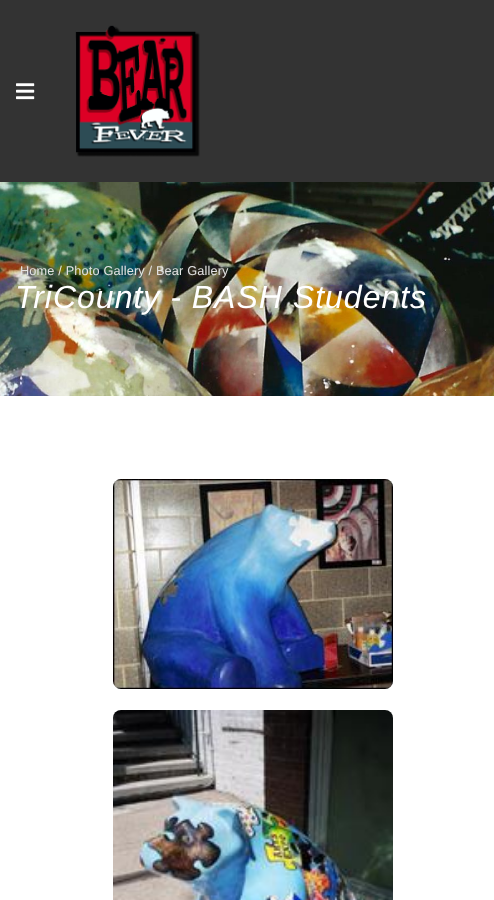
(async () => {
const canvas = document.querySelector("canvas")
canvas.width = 494
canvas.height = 900
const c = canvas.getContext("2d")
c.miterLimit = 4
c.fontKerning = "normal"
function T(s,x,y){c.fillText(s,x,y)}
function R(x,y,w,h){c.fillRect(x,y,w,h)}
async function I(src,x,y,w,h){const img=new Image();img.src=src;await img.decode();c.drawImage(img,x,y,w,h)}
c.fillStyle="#fff"
R(0,0,494,900)
c.fillStyle="#333"
R(0,0,494,182)
await I("1.png",16,83,19,17)
await I("2.png",75,25,125,132)
await I("3.png",0,182,494,214)
c.letterSpacing="0.15px"
c.font="12.75px Liberation Sans"
c.fillStyle="#e3e3e3"
T("Home / Photo Gallery / Bear Gallery",20,275)
c.letterSpacing="1px"
c.font="italic 32px Liberation Sans"
c.fillStyle="#fff"
T("TriCounty - BASH Students",15,308)
await I("4.png",113,479,280,210)
await I("5.png",113,710,280,190)
})()
